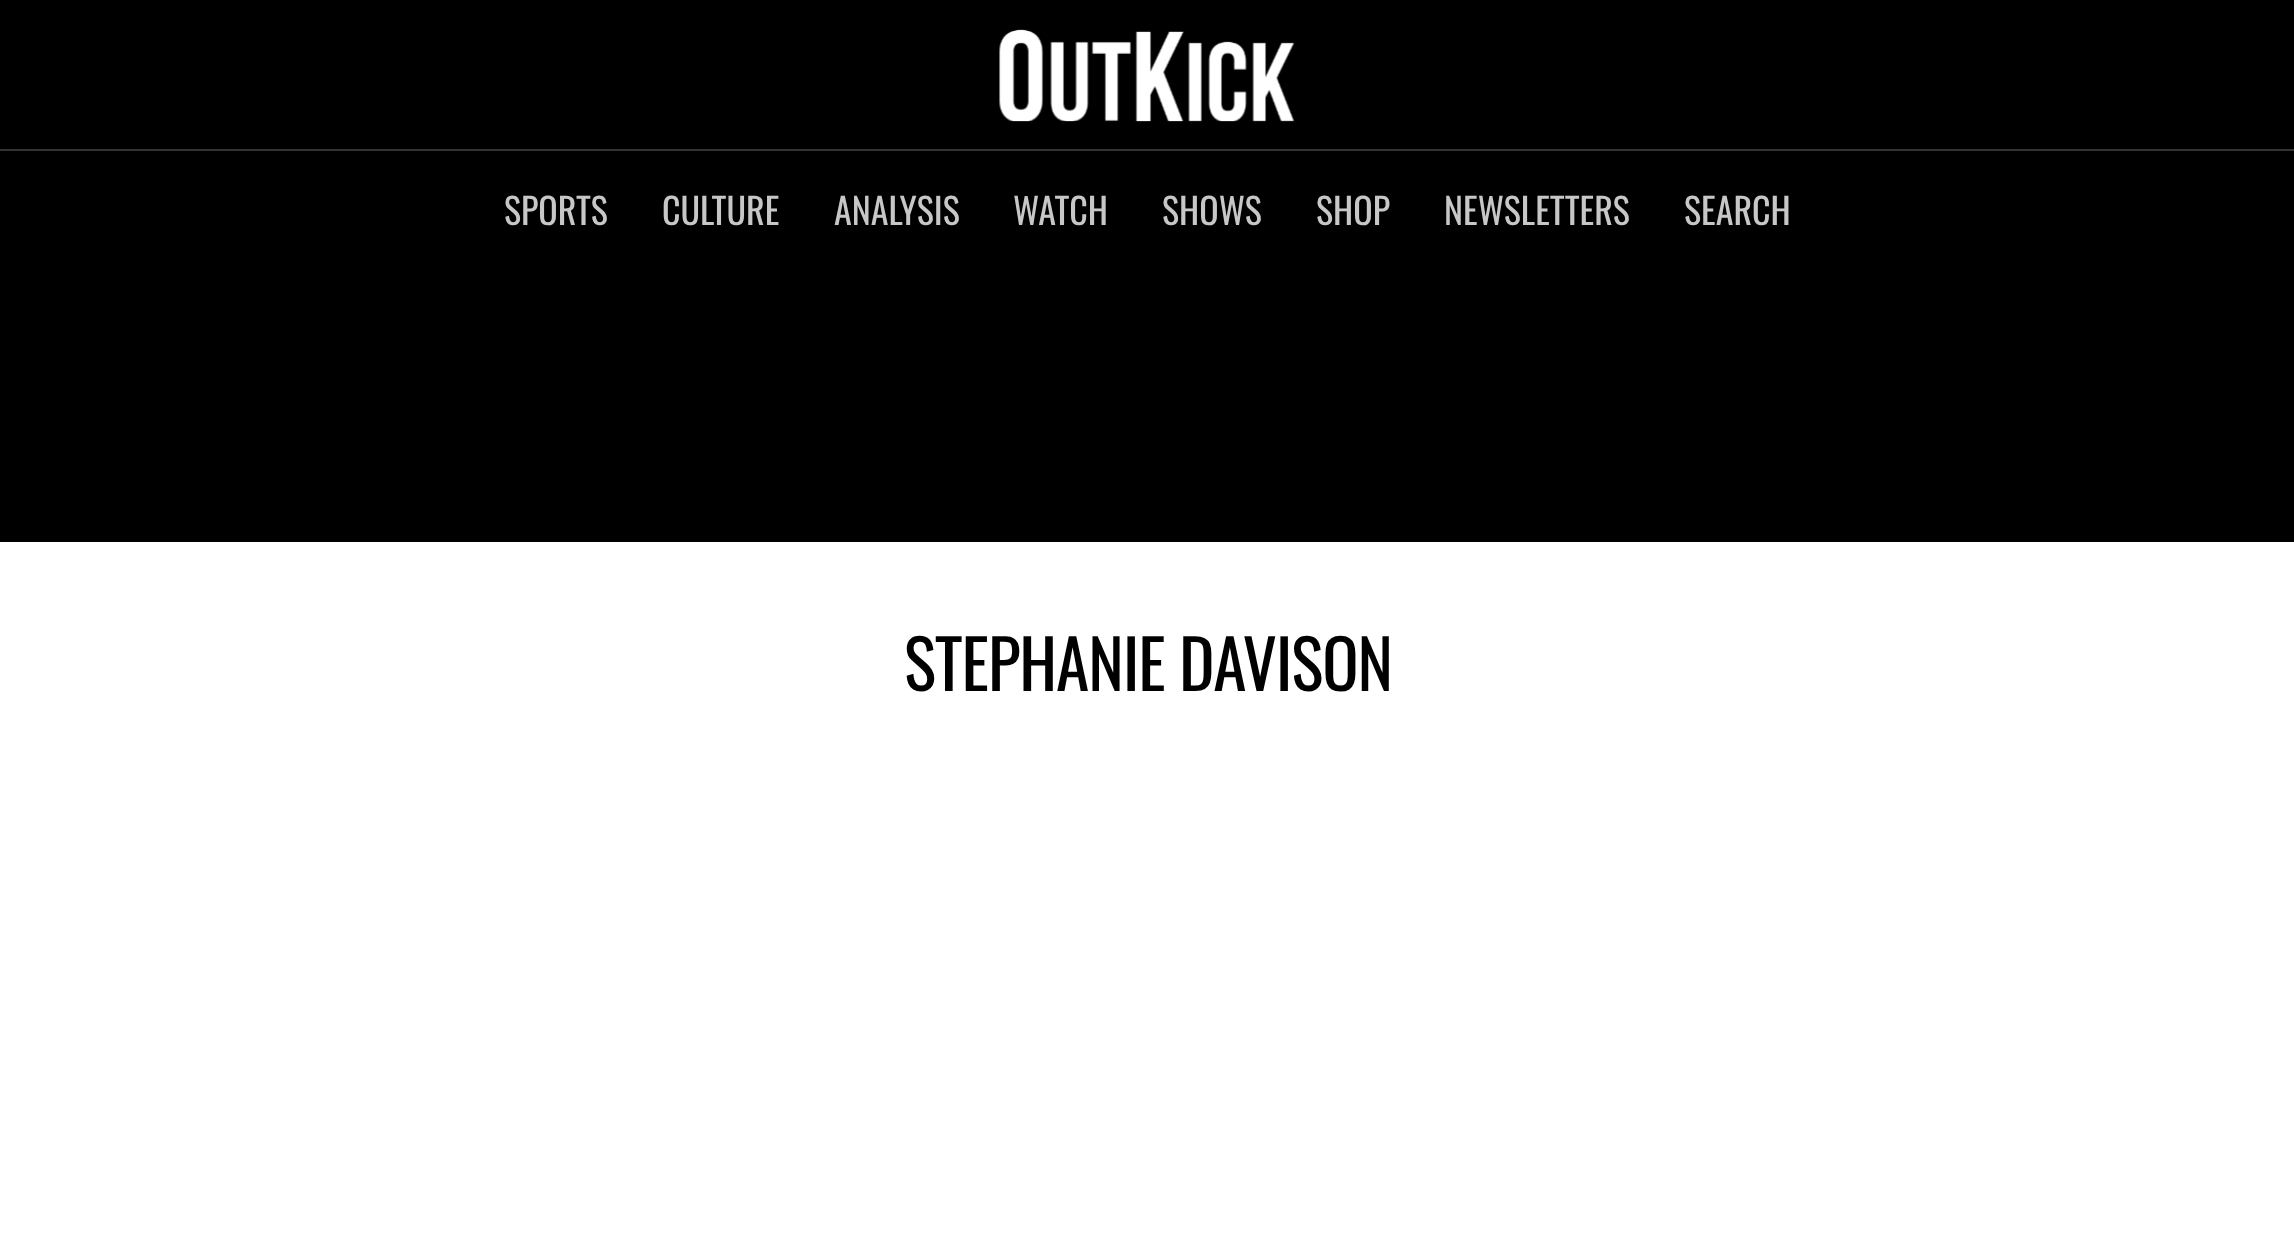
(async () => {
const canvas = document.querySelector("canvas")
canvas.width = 2294
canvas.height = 1236
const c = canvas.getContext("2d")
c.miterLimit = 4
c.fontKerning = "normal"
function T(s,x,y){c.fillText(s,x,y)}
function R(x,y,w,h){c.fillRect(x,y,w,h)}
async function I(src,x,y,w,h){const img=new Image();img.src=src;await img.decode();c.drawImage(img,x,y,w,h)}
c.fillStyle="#fff"
R(0,0,2294,1236)
c.fillStyle="#000"
R(0,0,2294,542)
await I("1.png",999,29,296,93)
c.fillStyle="#333"
R(0,149,2294,2)
c.font="36px Oswald"
c.fillStyle="#c7c7c7"
T("SPORTS",504,225)
T("CULTURE",662,225)
T("ANALYSIS",834,225)
T("WATCH",1013,225)
T("SHOWS",1162,225)
T("SHOP",1316,225)
T("NEWSLETTERS",1444,225)
T("SEARCH",1684,225)
c.letterSpacing="-1.1px"
c.font="67.5px Oswald"
c.fillStyle="#000"
T("STEPHANIE DAVISON",904,691)
})()
